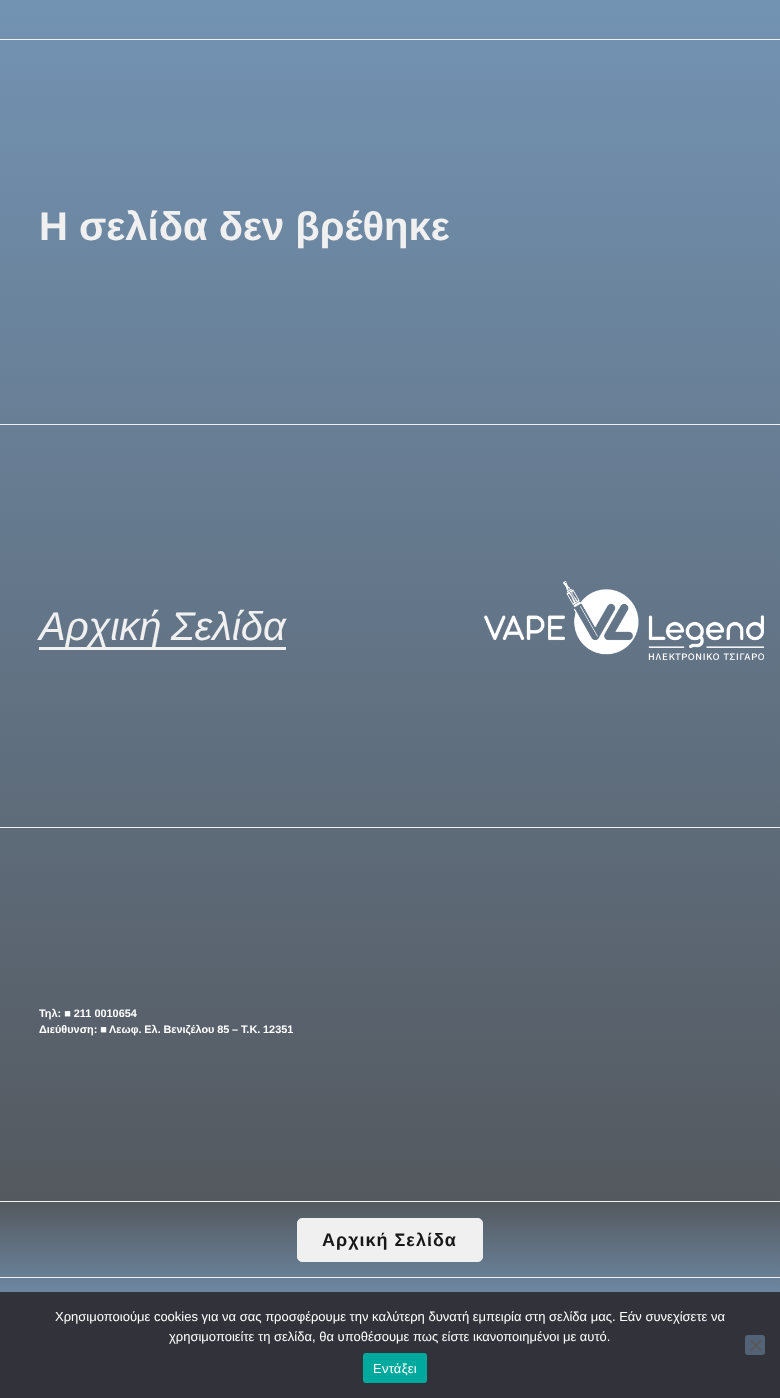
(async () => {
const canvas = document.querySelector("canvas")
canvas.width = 780
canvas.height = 1398
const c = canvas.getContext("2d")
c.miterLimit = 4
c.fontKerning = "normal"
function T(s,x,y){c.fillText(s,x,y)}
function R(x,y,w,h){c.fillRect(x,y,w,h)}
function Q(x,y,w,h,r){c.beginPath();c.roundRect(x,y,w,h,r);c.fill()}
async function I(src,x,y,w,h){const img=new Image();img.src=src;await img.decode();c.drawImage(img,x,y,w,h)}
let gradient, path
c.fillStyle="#fff"
R(0,0,780,1398)
gradient = c.createLinearGradient(390,0,390,1202)
gradient.addColorStop(0,"#7393b3")
gradient.addColorStop(1,"#54595f")
c.fillStyle = gradient
R(0,0,780,1201)
c.fillStyle="#f0f0f0"
R(0,39,780,1)
R(0,1201,780,1)
c.font="bold 40px Liberation Sans"
T("Η σελίδα δεν βρέθηκε",39,240)
R(0,424,780,1)
R(39,647,247,3)
c.wordSpacing="-2px"
c.font="italic 40px Liberation Sans"
T("Αρχική Σελίδα",39,640)
R(0,827,780,1)
c.wordSpacing="0px"
c.font="bold 10.9px Liberation Sans"
c.fillStyle="#fff"
T("Τηλ: ■ 211 0010654",39,1017)
c.wordSpacing="-0.25px"
T("Διεύθυνση: ■ Λεωφ. Ελ. Βενιζέλου 85 – Τ.Κ. 12351",39,1033)
await I("1.png",484,581,280,79)
gradient = c.createLinearGradient(390,1202,390,1317)
gradient.addColorStop(0,"#54595f")
gradient.addColorStop(1,"#7393b3")
c.fillStyle = gradient
R(0,1202,780,90)
c.fillStyle="#f0f0f0"
R(0,1277,780,1)
c.beginPath()
c.roundRect(297.5,1218.5,185,43,4.5)
c.fill()
c.strokeStyle="#f0f0f0"
c.stroke()
c.letterSpacing="1px"
c.wordSpacing="0px"
c.font="bold 18px Liberation Sans"
c.fillStyle="#181818"
T("Αρχική Σελίδα",322,1246)
c.fillStyle="#32323a"
R(0,1292,780,106)
c.letterSpacing="0px"
c.font="13px Liberation Sans"
c.fillStyle="#fff"
T("Χρησιμοποιούμε cookies για να σας προσφέρουμε την καλύτερη δυνατή εμπειρία στη σελίδα μας. Εάν συνεχίσετε να",55,1321)
T("χρησιμοποιείτε τη σελίδα, θα υποθέσουμε πως είστε ικανοποιημένοι με αυτό.",169,1341)
c.fillStyle="#536377"
Q(745,1335,20,20,3)
c.fillStyle="#59595d"
path = new Path2D("M760.5 1339.5l1.5 1.5l-10.5 10.5l-1.5-1.5z")
c.fill(path)
path = new Path2D("M750 1341l1.5-1.5l10.5 10.5l-1.5 1.5z")
c.fill(path)
c.fillStyle="#00a99d"
Q(363,1353,64,30,3)
c.letterSpacing="0.25px"
c.fillStyle="#fff"
T("Εντάξει",373,1373)
})()
